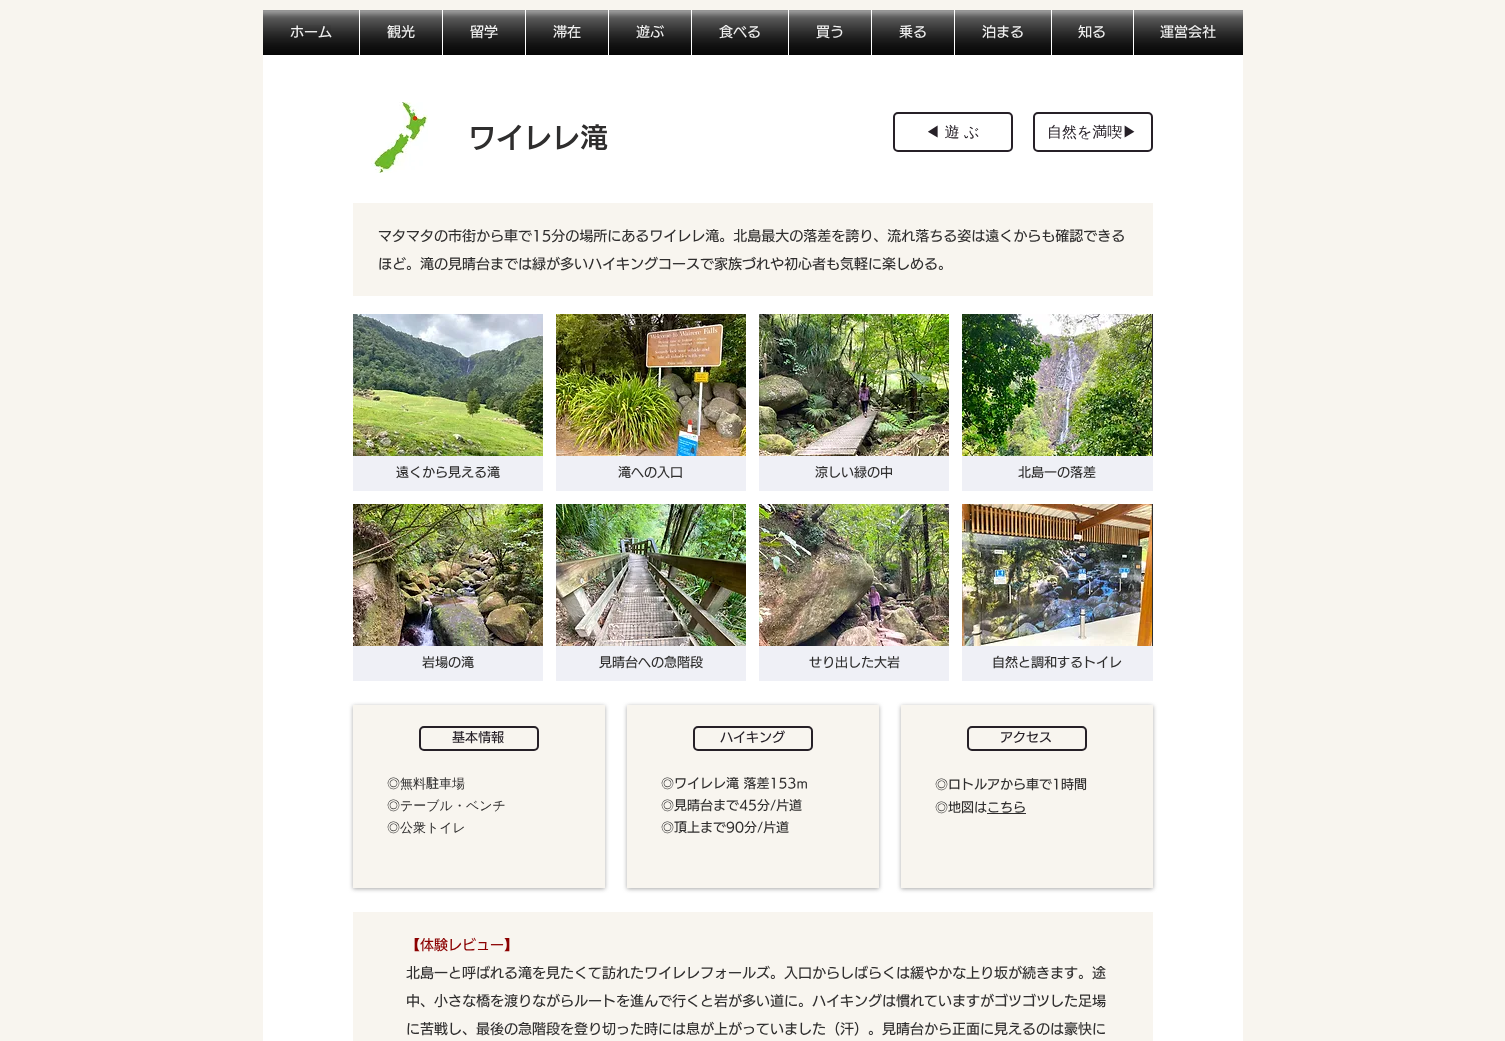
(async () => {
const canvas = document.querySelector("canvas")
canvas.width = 1505
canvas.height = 1041
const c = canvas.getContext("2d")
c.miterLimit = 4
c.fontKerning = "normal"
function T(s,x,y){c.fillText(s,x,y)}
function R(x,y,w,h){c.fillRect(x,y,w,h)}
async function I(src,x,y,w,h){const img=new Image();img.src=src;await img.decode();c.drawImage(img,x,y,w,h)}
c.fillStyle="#f8f5ef"
R(0,0,1505,1041)
c.fillStyle="#000"
R(263,10,96,45)
c.font="500 14px 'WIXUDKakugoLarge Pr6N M'"
c.fillStyle="#fff"
T("ホーム",290,37)
await I("1.png",263,10,96,45)
await I("2.png",290,25,41,13)
c.fillStyle="#000"
R(360,10,82,45)
c.fillStyle="#fff"
R(359,10,1,45)
T("観光",387,37)
await I("3.png",360,10,82,45)
await I("4.png",387,25,27,14)
c.fillStyle="#000"
R(443,10,82,45)
c.fillStyle="#fff"
R(442,10,1,45)
T("留学",470,37)
await I("5.png",443,10,82,45)
await I("6.png",470,25,27,14)
c.fillStyle="#000"
R(526,10,82,45)
c.fillStyle="#fff"
R(525,10,1,45)
T("滞在",553,37)
await I("7.png",526,10,82,45)
await I("8.png",553,25,27,14)
c.fillStyle="#000"
R(609,10,82,45)
c.fillStyle="#fff"
R(608,10,1,45)
T("遊ぶ",636,37)
await I("9.png",609,10,82,45)
await I("10.png",636,25,28,13)
c.fillStyle="#000"
R(692,10,96,45)
c.fillStyle="#fff"
R(691,10,1,45)
T("食べる",719,37)
await I("11.png",692,10,96,45)
await I("12.png",719,25,40,14)
c.fillStyle="#000"
R(789,10,82,45)
c.fillStyle="#fff"
R(788,10,1,45)
T("買う",816,37)
await I("13.png",789,10,82,45)
await I("14.png",816,25,26,14)
c.fillStyle="#000"
R(872,10,82,45)
c.fillStyle="#fff"
R(871,10,1,45)
T("乗る",899,37)
await I("15.png",872,10,82,45)
await I("16.png",899,25,26,14)
c.fillStyle="#000"
R(955,10,96,45)
c.fillStyle="#fff"
R(954,10,1,45)
T("泊まる",982,37)
await I("17.png",955,10,96,45)
await I("18.png",982,25,40,14)
c.fillStyle="#000"
R(1052,10,81,45)
c.fillStyle="#fff"
R(1051,10,1,45)
T("知る",1078,37)
await I("19.png",1052,10,81,45)
await I("20.png",1078,25,27,13)
c.fillStyle="#000"
R(1134,10,109,45)
c.fillStyle="#fff"
R(1133,10,1,45)
T("運営会社",1160,37)
await I("21.png",1134,10,109,45)
await I("22.png",1160,25,56,14)
R(263,55,980,986)
await I("23.png",371,102,57,71)
c.font="600 28px 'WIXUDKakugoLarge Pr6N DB'"
c.fillStyle="#2f2e2e"
T("ワイレレ滝",468,148)
c.beginPath()
c.roundRect(894,113,118,38,4)
c.strokeStyle="#262027"
c.lineWidth=2
c.stroke()
c.font="500 15px WenQuanYi Zen Hei"
c.fillStyle="#262027"
T("◀︎ 遊 ぶ",925,137)
c.beginPath()
c.roundRect(1034,113,118,38,4)
c.stroke()
T("自然を満喫▶︎",1047,137)
c.fillStyle="#f8f5ef"
R(353,203,800,93)
c.font="500 14px 'WIXUDKakugoLarge Pr6N M'"
c.fillStyle="#2f2e2e"
T("マタマタの市街から車で15分の場所にあるワイレレ滝。北島最大の落差を誇り、流れ落ちる姿は遠くからも確認できる",378,241)
T("ほど。滝の見晴台までは緑が多いハイキングコースで家族づれや初心者も気軽に楽しめる。",378,269)
await I("24.png",353,314,190,142)
c.fillStyle="#eff0f6"
R(353,456,190,35)
c.font="500 13px 'WIXUDKakugoLarge Pr6N M'"
c.fillStyle="#2f2e2e"
T("遠くから見える滝",396,477)
await I("25.png",556,314,190,142)
c.fillStyle="#eff0f6"
R(556,456,190,35)
c.fillStyle="#2f2e2e"
T("滝への入口",618,477)
await I("26.png",759,314,190,142)
c.fillStyle="#eff0f6"
R(759,456,190,35)
c.fillStyle="#2f2e2e"
T("涼しい緑の中",815,477)
R(1152,314,1,142)
await I("27.png",962,314,190,142)
c.fillStyle="#eff0f6"
R(962,456,191,35)
c.save()
c.beginPath()
c.rect(972,466,171,14)
c.clip()
c.fillStyle="#2f2e2e"
T("北島一の落差",1018,477)
c.restore()
await I("28.png",353,504,190,142)
R(353,646,190,35)
c.fillStyle="#2f2e2e"
T("岩場の滝",422,667)
await I("29.png",556,504,190,142)
c.fillStyle="#eff0f6"
R(556,646,190,35)
c.fillStyle="#2f2e2e"
T("見晴台への急階段",599,667)
await I("30.png",759,504,190,142)
c.fillStyle="#eff0f6"
R(759,646,190,35)
c.fillStyle="#2f2e2e"
T("せり出した大岩",809,667)
R(1152,504,1,142)
await I("31.png",962,504,190,142)
c.fillStyle="#eff0f6"
R(962,646,191,35)
c.fillStyle="#2f2e2e"
T("自然と調和するトイレ",992,667)
c.fillStyle="#a9a9a9"
c.filter="blur(2px)"
c.beginPath()
c.rect(353,706,252,183)
c.fill()
c.filter="none"
c.fillStyle="#f8f5ef"
R(353,705,252,183)
c.beginPath()
c.roundRect(420,727,118,23,4)
c.stroke()
c.fillStyle="#262027"
T("基本情報",452,742)
c.font="500 13px WenQuanYi Zen Hei"
c.fillStyle="#2f2e2e"
T("◎無料",387,788)
c.font="500 13px 'WIXUDKakugoLarge Pr6N M'"
T("駐",426,788)
c.font="500 13px WenQuanYi Zen Hei"
T("車場",439,788)
T("◎テーブル・ベンチ",387,810)
T("◎公衆トイレ",387,832)
c.fillStyle="#a9a9a9"
c.filter="blur(2px)"
c.beginPath()
c.rect(627,706,252,183)
c.fill()
c.filter="none"
c.fillStyle="#f8f5ef"
R(627,705,252,183)
c.beginPath()
c.roundRect(694,727,118,23,4)
c.stroke()
c.font="500 13px 'WIXUDKakugoLarge Pr6N M'"
c.fillStyle="#262027"
T("ハイキング",720,742)
c.font="500 13px WenQuanYi Zen Hei"
c.fillStyle="#2f2e2e"
T("◎",661,788)
c.font="500 13px 'WIXUDKakugoLarge Pr6N M'"
T("ワイレレ滝 落差153m",674,788)
c.font="500 13px WenQuanYi Zen Hei"
T("◎",661,810)
c.font="500 13px 'WIXUDKakugoLarge Pr6N M'"
T("見晴台まで45分/片道",674,810)
c.font="500 13px WenQuanYi Zen Hei"
T("◎",661,832)
c.font="500 13px 'WIXUDKakugoLarge Pr6N M'"
T("頂上まで90分/片道",674,832)
c.fillStyle="#a9a9a9"
c.filter="blur(2px)"
c.beginPath()
c.rect(901,706,252,183)
c.fill()
c.filter="none"
c.fillStyle="#f8f5ef"
R(901,705,252,183)
c.beginPath()
c.roundRect(968,727,118,23,4)
c.stroke()
c.fillStyle="#262027"
T("アクセス",1000,742)
c.font="500 13px WenQuanYi Zen Hei"
c.fillStyle="#2f2e2e"
T("◎",935,789)
c.font="500 13px 'WIXUDKakugoLarge Pr6N M'"
T("ロトルアから車で1時間",948,789)
c.font="500 13px WenQuanYi Zen Hei"
T("◎",935,812)
c.font="500 13px 'WIXUDKakugoLarge Pr6N M'"
T("地図はこちら",948,812)
R(987,813,39,1)
c.fillStyle="#f8f5ef"
R(353,912,800,129)
c.font="500 14px 'WIXUDKakugoLarge Pr6N M'"
c.fillStyle="#8b0000"
T("【体験レビュー】",406,950)
c.fillStyle="#2f2e2e"
T("北島一と呼ばれる滝を見たくて訪れたワイレレフォールズ。入口からしばらくは緩やかな上り坂が続きます。途",406,978)
T("中、小さな橋を渡りながらルートを進んで行くと岩が多い道に。ハイキングは慣れていますがゴツゴツした足場",406,1006)
T("に苦戦し、最後の急階段を登り切った時には息が上がっていました（汗）。見晴台から正面に見えるのは豪快に",406,1034)
})()
